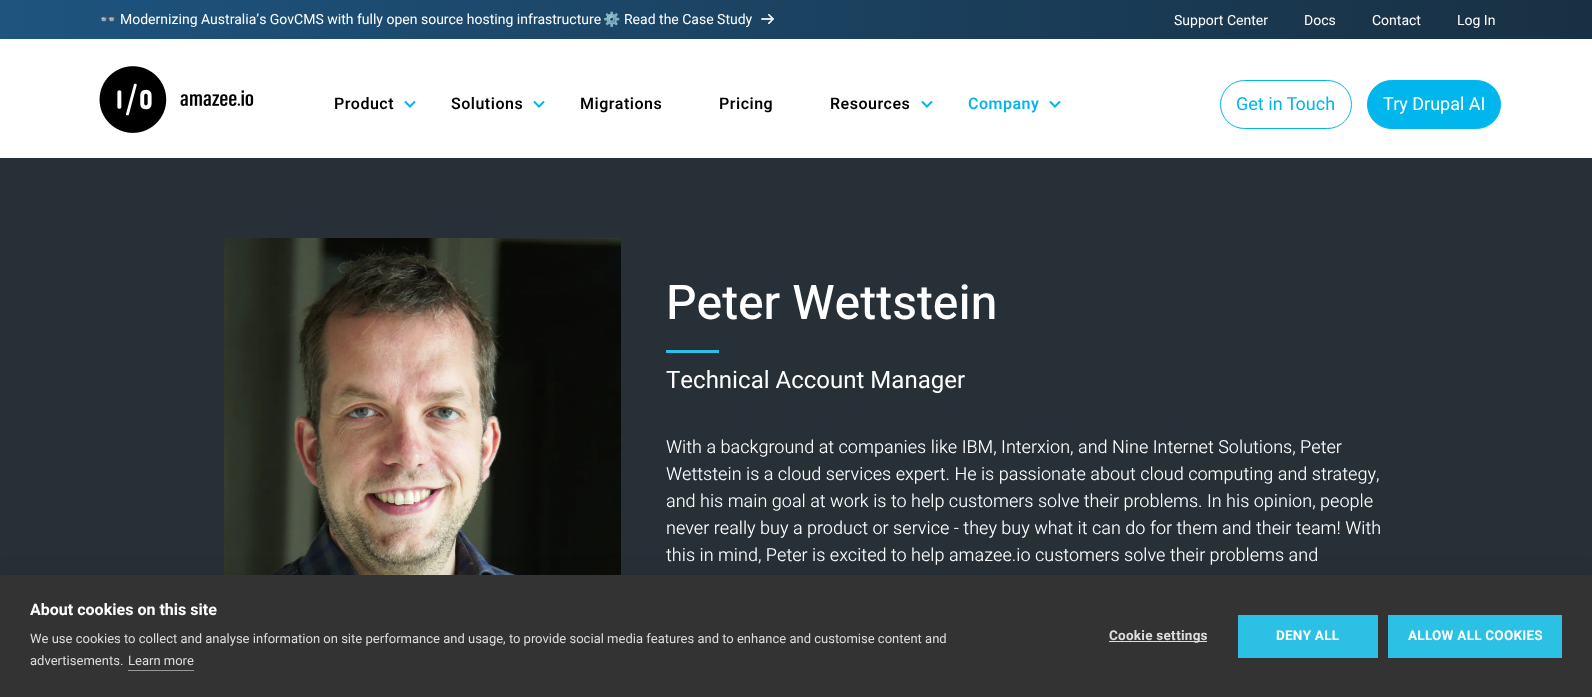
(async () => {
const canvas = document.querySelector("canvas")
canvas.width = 1592
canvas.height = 697
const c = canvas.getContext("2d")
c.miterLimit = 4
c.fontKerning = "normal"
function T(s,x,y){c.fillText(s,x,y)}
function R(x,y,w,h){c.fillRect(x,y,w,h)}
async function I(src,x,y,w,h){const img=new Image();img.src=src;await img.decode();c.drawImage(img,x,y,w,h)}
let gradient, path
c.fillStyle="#fff"
R(0,0,1592,697)
gradient = c.createLinearGradient(0,20,1592,19)
gradient.addColorStop(0,"#1e547f")
gradient.addColorStop(1,"#183043")
c.fillStyle = gradient
R(0,0,1592,39)
c.font="14px Noto Color Emoji"
c.fillStyle="#fff"
T("👓",99,24)
c.font="14px Heebo"
T("Modernizing Australia’s GovCMS with fully open source hosting infrastructure",120,24)
c.font="14px Noto Color Emoji"
T("⚙️",603,24)
c.font="14px Heebo"
T("Read the Case Study",624,24)
await I("1.png",761,14,13,10)
T("Support Center",1174,25)
T("Docs",1304,25)
T("Contact",1372,25)
T("Log In",1457,25)
await I("2.png",99,66,155,67)
path = new Path2D("M415 101.5l-5 5l-5-5")
c.strokeStyle="#00b6ed"
c.lineWidth=2
c.stroke(path)
c.letterSpacing="0.5px"
c.font="600 16px Heebo"
c.fillStyle="#000"
T("Product",334,109)
path = new Path2D("M544 101.5l-5 5l-5-5")
c.stroke(path)
T("Solutions",451,109)
T("Migrations",580,109)
T("Pricing",719,109)
path = new Path2D("M932 101.5l-5 5l-5-5")
c.stroke(path)
T("Resources",830,109)
path = new Path2D("M1060 101.5l-5 5l-5-5")
c.stroke(path)
c.fillStyle="#00b6ed"
T("Company",968,109)
c.beginPath()
c.roundRect(1220.5,80.5,131,48,24)
c.lineWidth=1
c.stroke()
c.letterSpacing="0px"
c.font="18px Heebo"
T("Get in Touch",1236,110)
c.beginPath()
c.roundRect(1367.5,80.5,133,48,24)
c.fill()
c.stroke()
c.fillStyle="#fff"
T("Try Drupal AI",1383,110)
c.fillStyle="#273037"
R(0,158,1592,417)
await I("3.png",224,238,397,337)
c.font="500 48px Heebo"
c.fillStyle="#fff"
T("Peter Wettstein",666,319)
c.fillStyle="#2bc0e4"
R(666,350,53,3)
c.font="24px Heebo"
c.fillStyle="#fff"
T("Technical Account Manager",666,388)
c.font="300 18px Heebo"
T("With a background at companies like IBM, Interxion, and Nine Internet Solutions, Peter",666,453)
T("Wettstein is a cloud services expert. He is passionate about cloud computing and strategy,",666,480)
T("and his main goal at work is to help customers solve their problems. In his opinion, people",666,507)
T("never really buy a product or service - they buy what it can do for them and their team! With",666,534)
T("this in mind, Peter is excited to help amazee.io customers solve their problems and",666,561)
c.fillStyle="#0000001a"
c.filter="blur(10px)"
c.beginPath()
c.rect(0,575,1592,122)
c.fill()
c.filter="none"
c.fillStyle="#333"
R(0,575,1592,122)
c.font="bold 16px Heebo"
c.fillStyle="#fff"
T("About cookies on this site",30,615)
c.font="13px Heebo"
c.fillStyle="#ddd"
T("We use cookies to collect and analyse information on site performance and usage, to provide social media features and to enhance and customise content and",30,643)
T("advertisements.",30,665)
T("Learn more",128,665)
c.fillStyle="#999"
R(128,670,66,1)
c.fillStyle="#ddd"
R(1109,641,98,1)
c.letterSpacing="0.25px"
c.font="bold 13.5px Heebo"
T("Cookie settings",1109,640)
c.fillStyle="#2bc0e4"
R(1238,615,140,43)
c.fillStyle="#fff"
T("DENY ALL",1276,640)
c.fillStyle="#2bc0e4"
R(1388,615,174,43)
c.fillStyle="#fff"
T("ALLOW ALL COOKIES",1408,640)
})()
